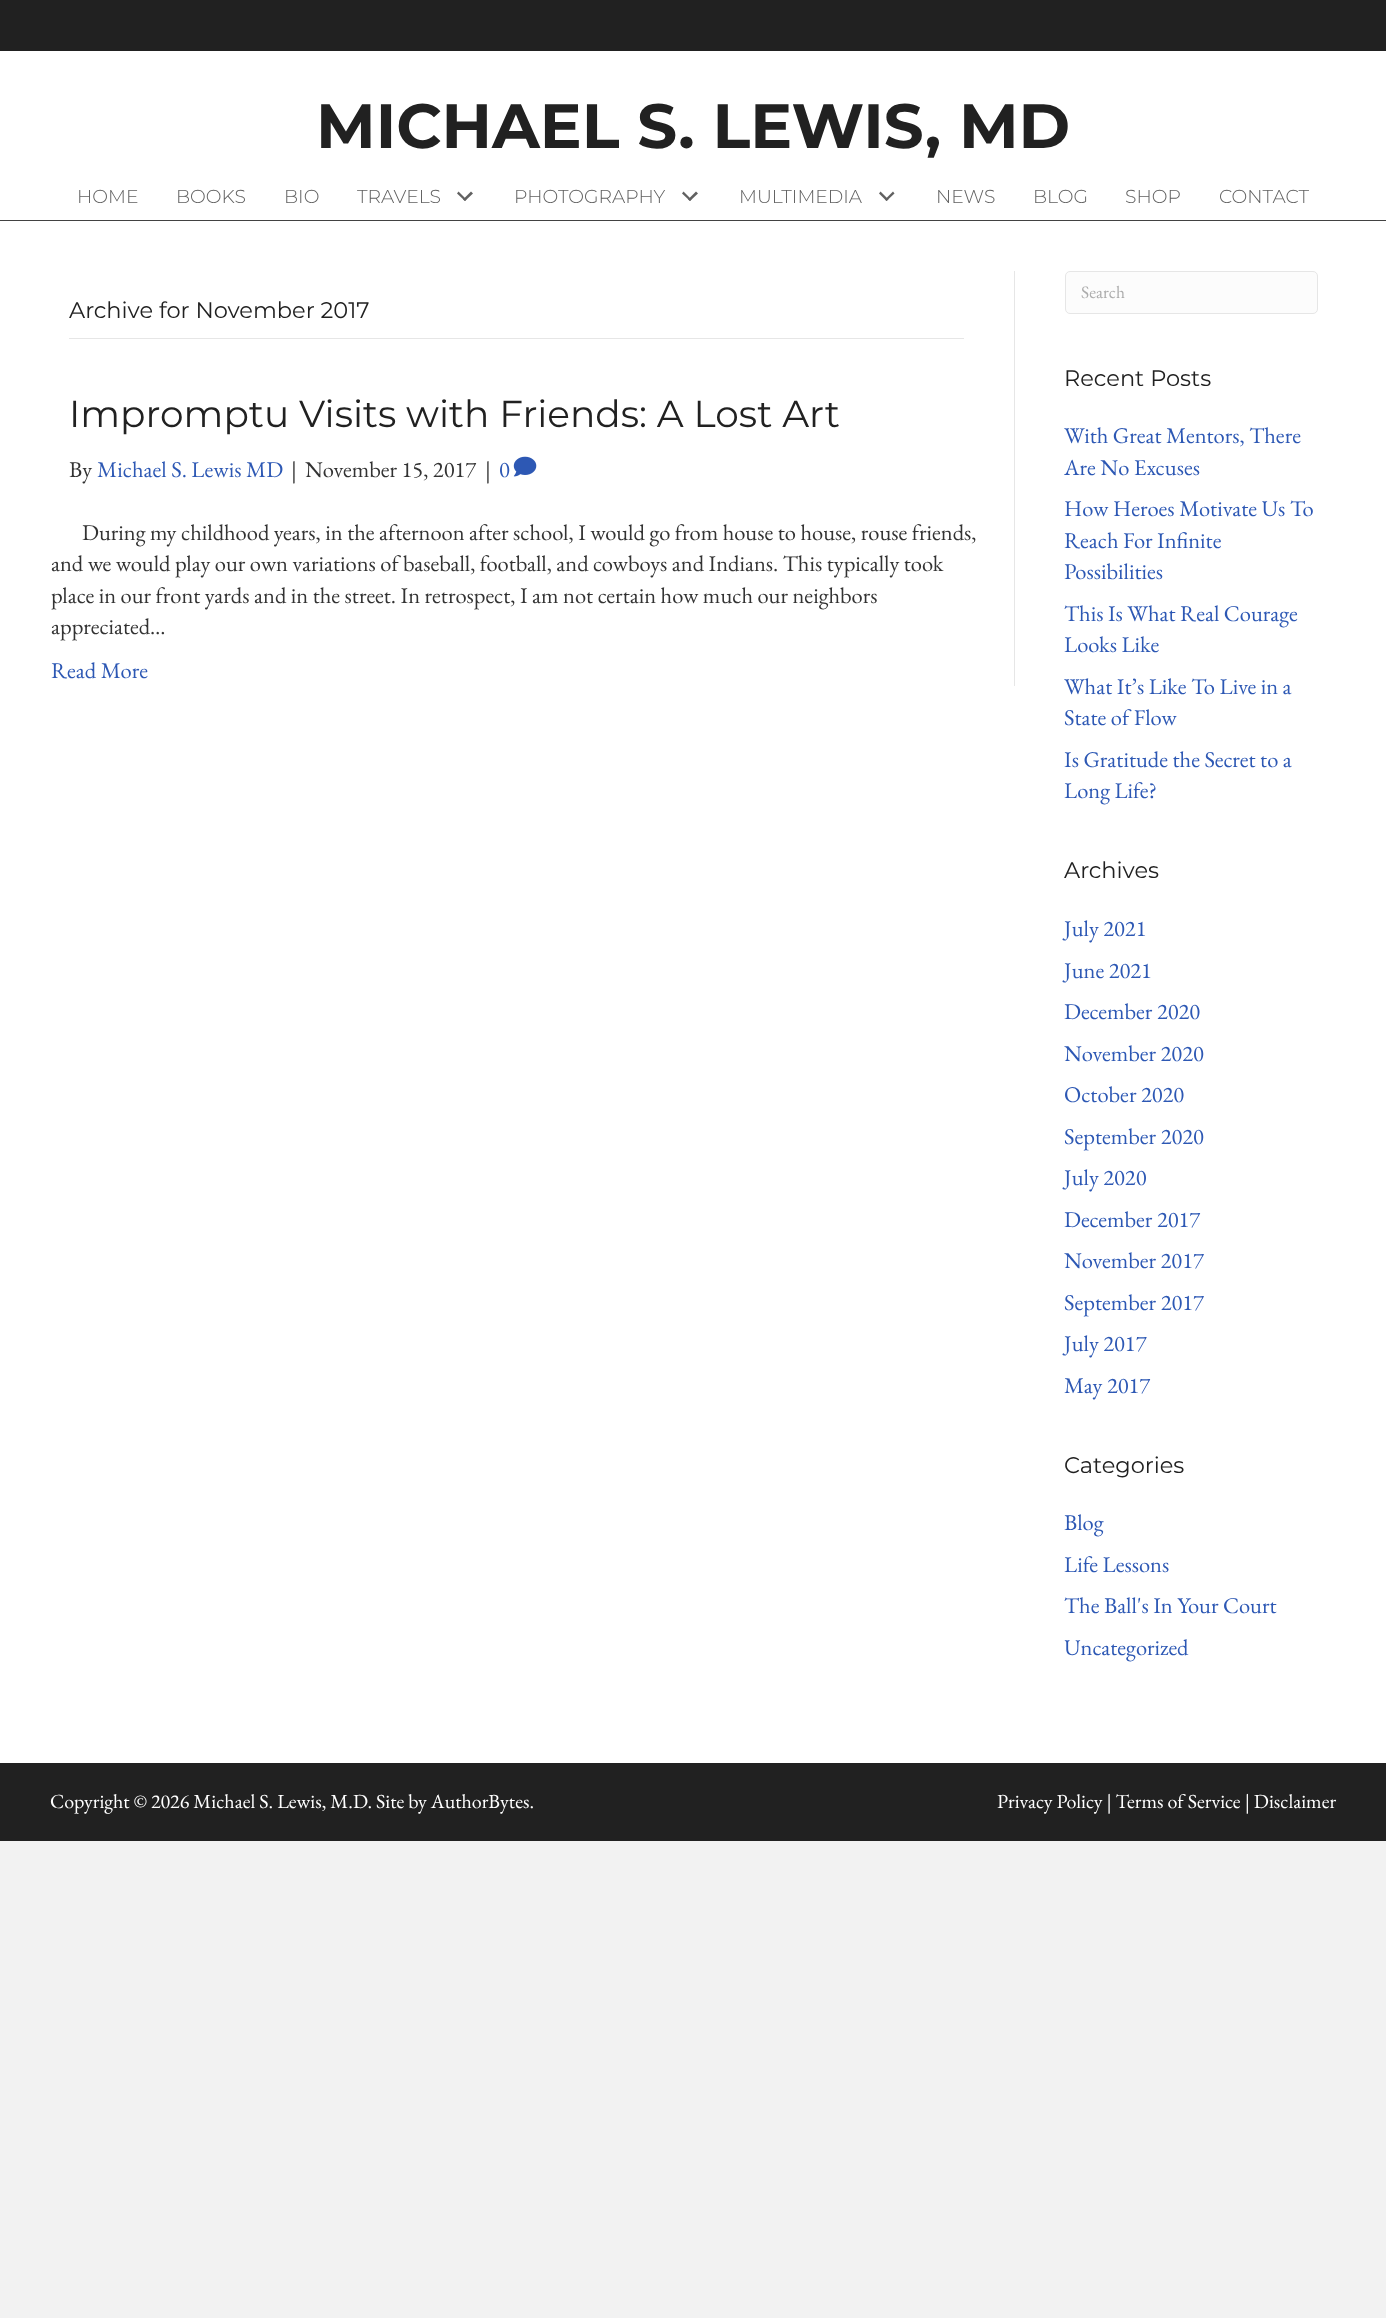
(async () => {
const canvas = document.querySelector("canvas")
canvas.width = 1386
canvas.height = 2318
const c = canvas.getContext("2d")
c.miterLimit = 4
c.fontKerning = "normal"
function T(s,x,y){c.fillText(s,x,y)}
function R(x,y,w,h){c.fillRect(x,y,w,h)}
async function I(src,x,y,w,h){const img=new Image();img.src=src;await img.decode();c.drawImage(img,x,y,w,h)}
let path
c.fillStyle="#f2f2f2"
R(0,0,1386,2318)
c.fillStyle="#212121"
R(0,0,1386,51)
c.fillStyle="#fff"
R(0,51,1386,169)
c.fillStyle="#424242"
R(0,220,1386,1)
c.font="bold 62.5px Montserrat"
c.fillStyle="#212121"
T("MICHAEL S. LEWIS, MD",316,148)
c.font="300 18.75px Montserrat"
c.fillStyle="#616161"
T("HOME",77,203)
T("BOOKS",176,203)
T("BIO",284,203)
T("TRAVELS",357,203)
path = new Path2D("M471 191.5l2 2l-8 7.5l-2-1.5z")
c.fill(path)
path = new Path2D("M458.5 191.5l8 8l-1.5 1.5l-8-7.5z")
c.fill(path)
T("PHOTOGRAPHY",514,203)
path = new Path2D("M696 191.5l2 2l-8 7.5l-2-1.5z")
c.fill(path)
path = new Path2D("M683.5 191.5l8 8l-1.5 1.5l-8-7.5z")
c.fill(path)
T("MULTIMEDIA",739,203)
path = new Path2D("M893 191.5l1.5 2l-8 7.5l-1.5-1.5z")
c.fill(path)
path = new Path2D("M880.5 191.5l8 8l-2 1.5l-7.5-7.5z")
c.fill(path)
T("NEWS",936,203)
T("BLOG",1033,203)
T("SHOP",1125,203)
T("CONTACT",1219,203)
c.fillStyle="#fff"
R(0,221,1386,1542)
c.fillStyle="#e6e6e6"
R(1014,271,1,415)
R(69,338,895,1)
c.font="22.5px Montserrat"
c.fillStyle="#212121"
T("Archive for November 2017",69,318)
c.font="37.5px Montserrat"
T("Impromptu Visits with Friends: A Lost Art",69,427)
c.font="22.5px EB Garamond"
c.fillStyle="#333"
T("By",69,477)
c.fillStyle="#2d58b4"
T("Michael S. Lewis MD",97,477)
c.fillStyle="#333"
T("|",291,477)
T("November 15, 2017",305,477)
T("|",485,477)
c.fillStyle="#2d58b4"
T("0",499,477)
await I("1.png",513,456,24,21)
c.fillStyle="#333"
T("During my childhood years, in the afternoon after school, I would go from house to house, rouse friends,",82,540)
T("and we would play our own variations of baseball, football, and cowboys and Indians. This typically took",51,571)
T("place in our front yards and in the street. In retrospect, I am not certain how much our neighbors",51,603)
T("appreciated…",51,634)
c.fillStyle="#2d58b4"
T("Read More",51,678)
c.fillStyle="#fcfcfc"
c.beginPath()
c.roundRect(1065.5,271.5,252,42,4.5)
c.fill()
c.strokeStyle="#e6e6e6"
c.stroke()
c.font="17.5px EB Garamond"
c.fillStyle="#acacac"
T("Search",1081,298)
c.font="22.5px Montserrat"
c.fillStyle="#212121"
T("Recent Posts",1064,386)
c.font="22.5px EB Garamond"
c.fillStyle="#2d58b4"
T("With Great Mentors, There",1064,443)
T("Are No Excuses",1064,475)
T("How Heroes Motivate Us To",1064,516)
T("Reach For Infinite",1064,548)
T("Possibilities",1064,579)
T("This Is What Real Courage",1064,621)
T("Looks Like",1064,652)
T("What It’s Like To Live in a",1064,694)
T("State of Flow",1064,725)
T("Is Gratitude the Secret to a",1064,767)
T("Long Life?",1064,798)
c.font="22.5px Montserrat"
c.fillStyle="#212121"
T("Archives",1064,878)
c.font="22.5px EB Garamond"
c.fillStyle="#2d58b4"
T("July 2021",1064,936)
T("June 2021",1064,978)
T("December 2020",1064,1019)
T("November 2020",1064,1061)
T("October 2020",1064,1102)
T("September 2020",1064,1144)
T("July 2020",1064,1185)
T("December 2017",1064,1227)
T("November 2017",1064,1268)
T("September 2017",1064,1310)
T("July 2017",1064,1351)
T("May 2017",1064,1393)
c.font="22.5px Montserrat"
c.fillStyle="#212121"
T("Categories",1064,1473)
c.font="22.5px EB Garamond"
c.fillStyle="#2d58b4"
T("Blog",1064,1530)
T("Life Lessons",1064,1572)
T("The Ball's In Your Court",1064,1613)
T("Uncategorized",1064,1655)
c.fillStyle="#212121"
R(0,1763,1386,78)
c.font="20px EB Garamond"
c.fillStyle="#fff"
T("Copyright © 2026 Michael S. Lewis, M.D. Site by AuthorBytes.",50,1808)
T("Privacy Policy | Terms of Service | Disclaimer",997,1808)
})()
